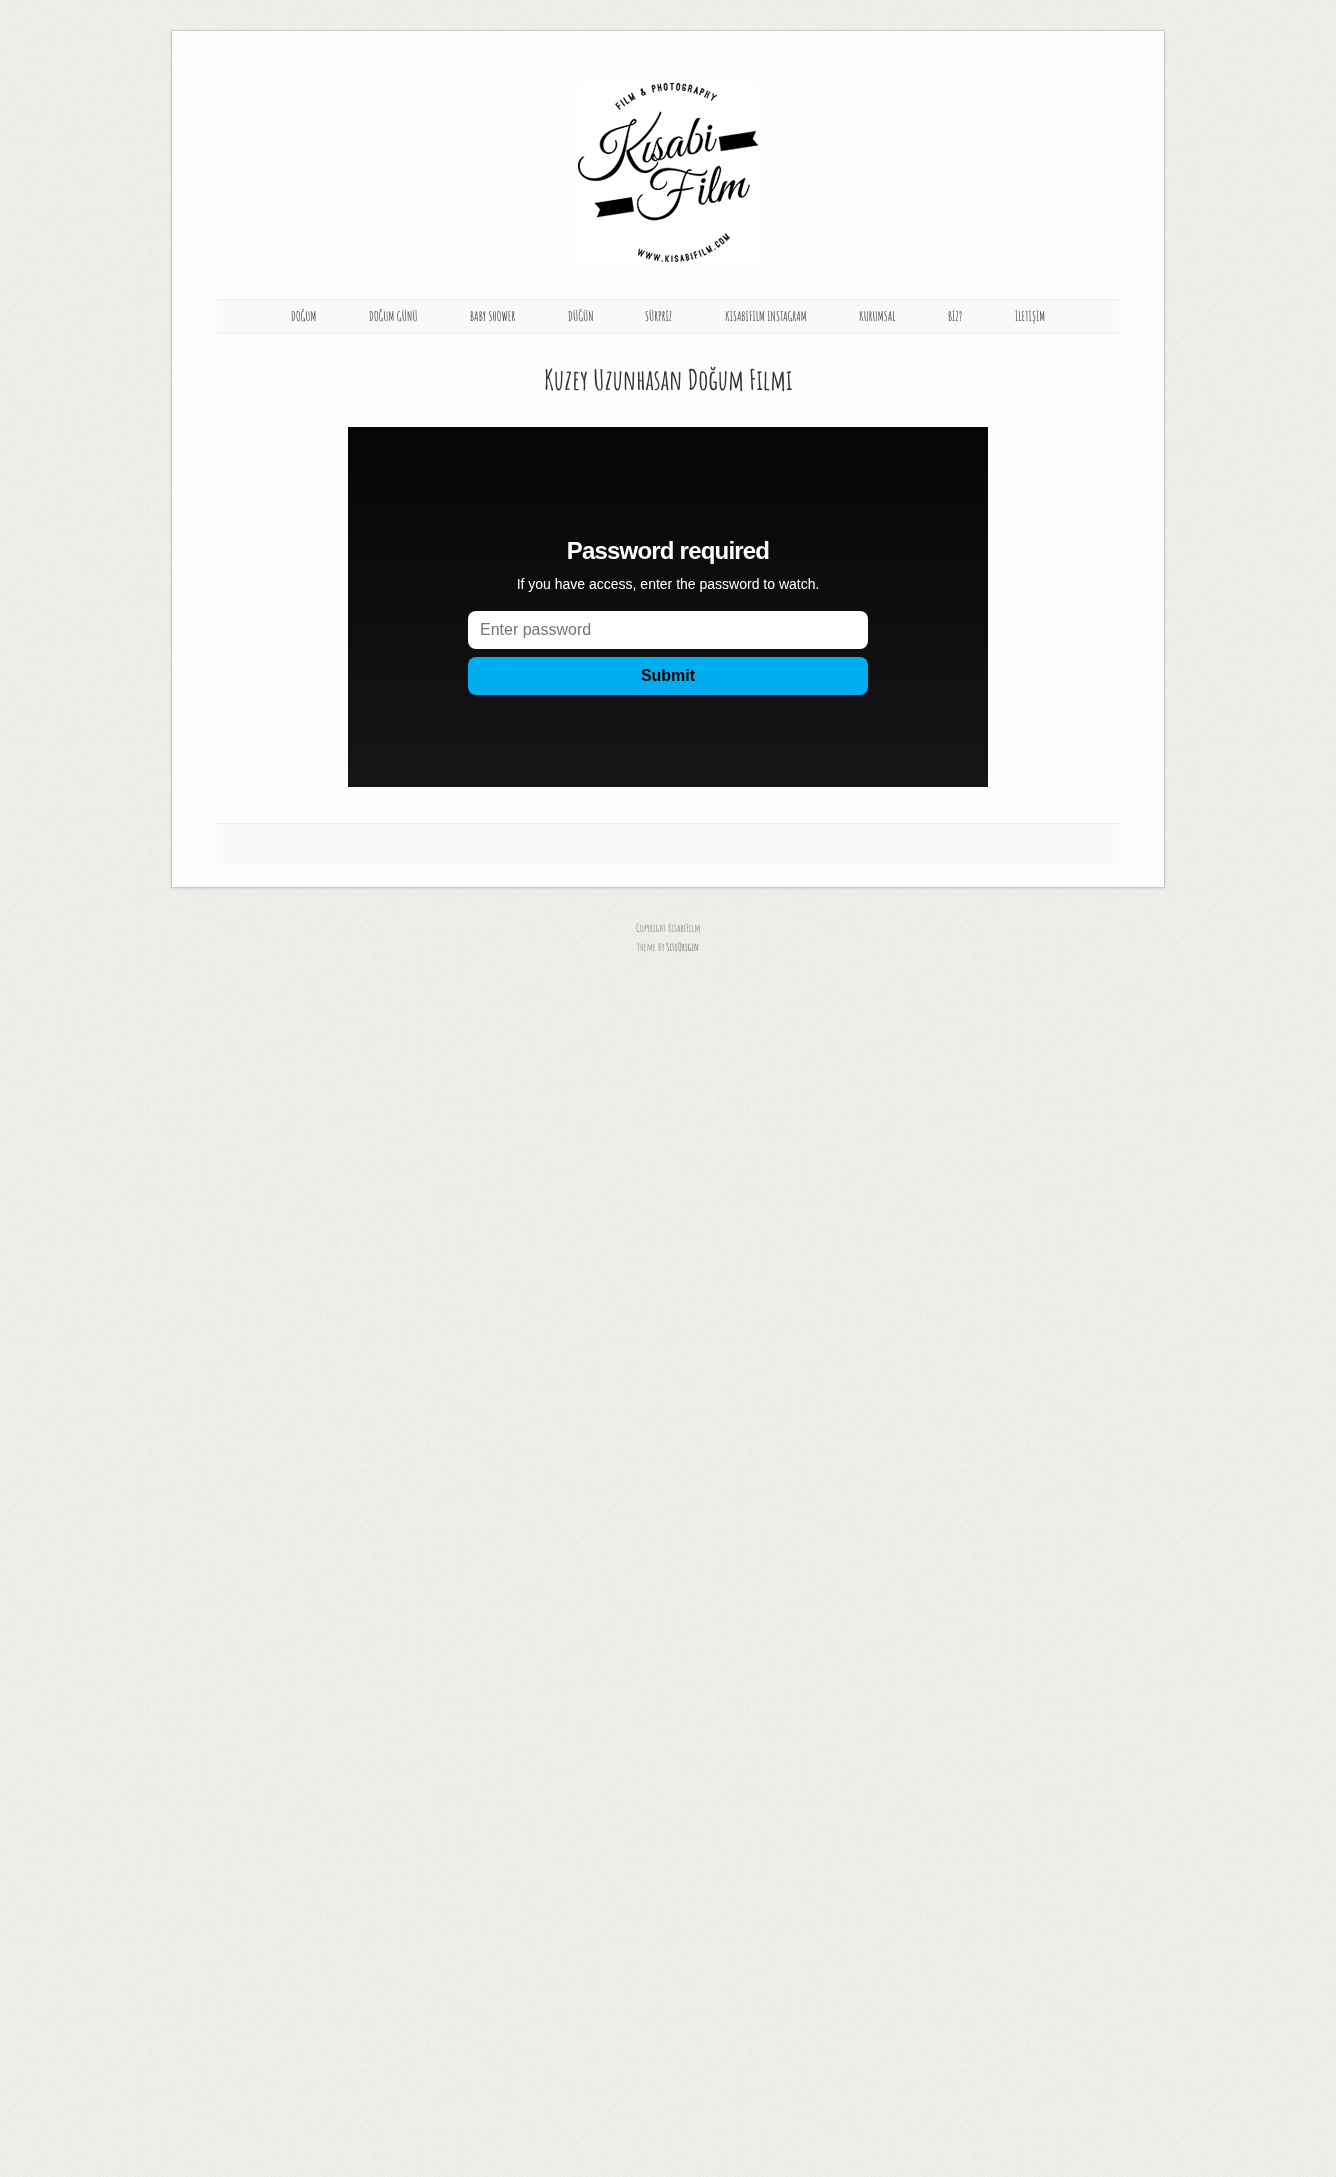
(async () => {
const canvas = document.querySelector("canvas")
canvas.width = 1336
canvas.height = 2177
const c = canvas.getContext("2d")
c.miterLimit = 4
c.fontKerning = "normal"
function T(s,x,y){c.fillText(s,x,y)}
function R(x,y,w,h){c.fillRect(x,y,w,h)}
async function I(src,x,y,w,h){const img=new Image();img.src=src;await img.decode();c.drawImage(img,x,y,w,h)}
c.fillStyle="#fff"
R(0,0,1336,2177)
await I("1.png",0,0,1336,2177)
c.fillStyle="#0000001a"
c.filter="blur(1px)"
c.beginPath()
c.rect(171,31,994,858)
c.fill()
c.filter="none"
c.fillStyle="#fdfdfd"
c.beginPath()
c.rect(171.5,30.5,993,857)
c.fill()
c.strokeStyle="#cbc9c7"
c.stroke()
await I("2.png",578,83,180,179)
c.fillStyle="#f9f9f9"
R(217,300,902,33)
c.fillStyle="#eee"
R(217,299,902,1)
R(217,333,902,1)
c.font="bold 13px Amatic SC"
c.fillStyle="#505050"
T("DOĞUM",291,321)
T("DOĞUM GÜNÜ",369,321)
T("BABY SHOWER",470,321)
T("DÜĞÜN",568,321)
T("SÜRPRİZ",645,321)
T("KISABIFILM INSTAGRAM",725,321)
T("KURUMSAL",859,321)
T("BİZ?",948,321)
T("İLETİŞİM",1015,321)
c.font="bold 28px Amatic SC"
c.fillStyle="#333"
T("Kuzey Uzunhasan Doğum Filmi",544,390)
await I("3.png",348,427,640,360)
c.fillStyle="#f9f9f9"
R(217,824,902,40)
c.fillStyle="#eee"
R(217,823,902,1)
c.font="bold 11px Amatic SC"
c.fillStyle="#999"
T("Copyright KısabiFilm",636,932)
T("Theme By",637,951)
c.fillStyle="#777"
T("SiteOrigin",666,951)
})()
